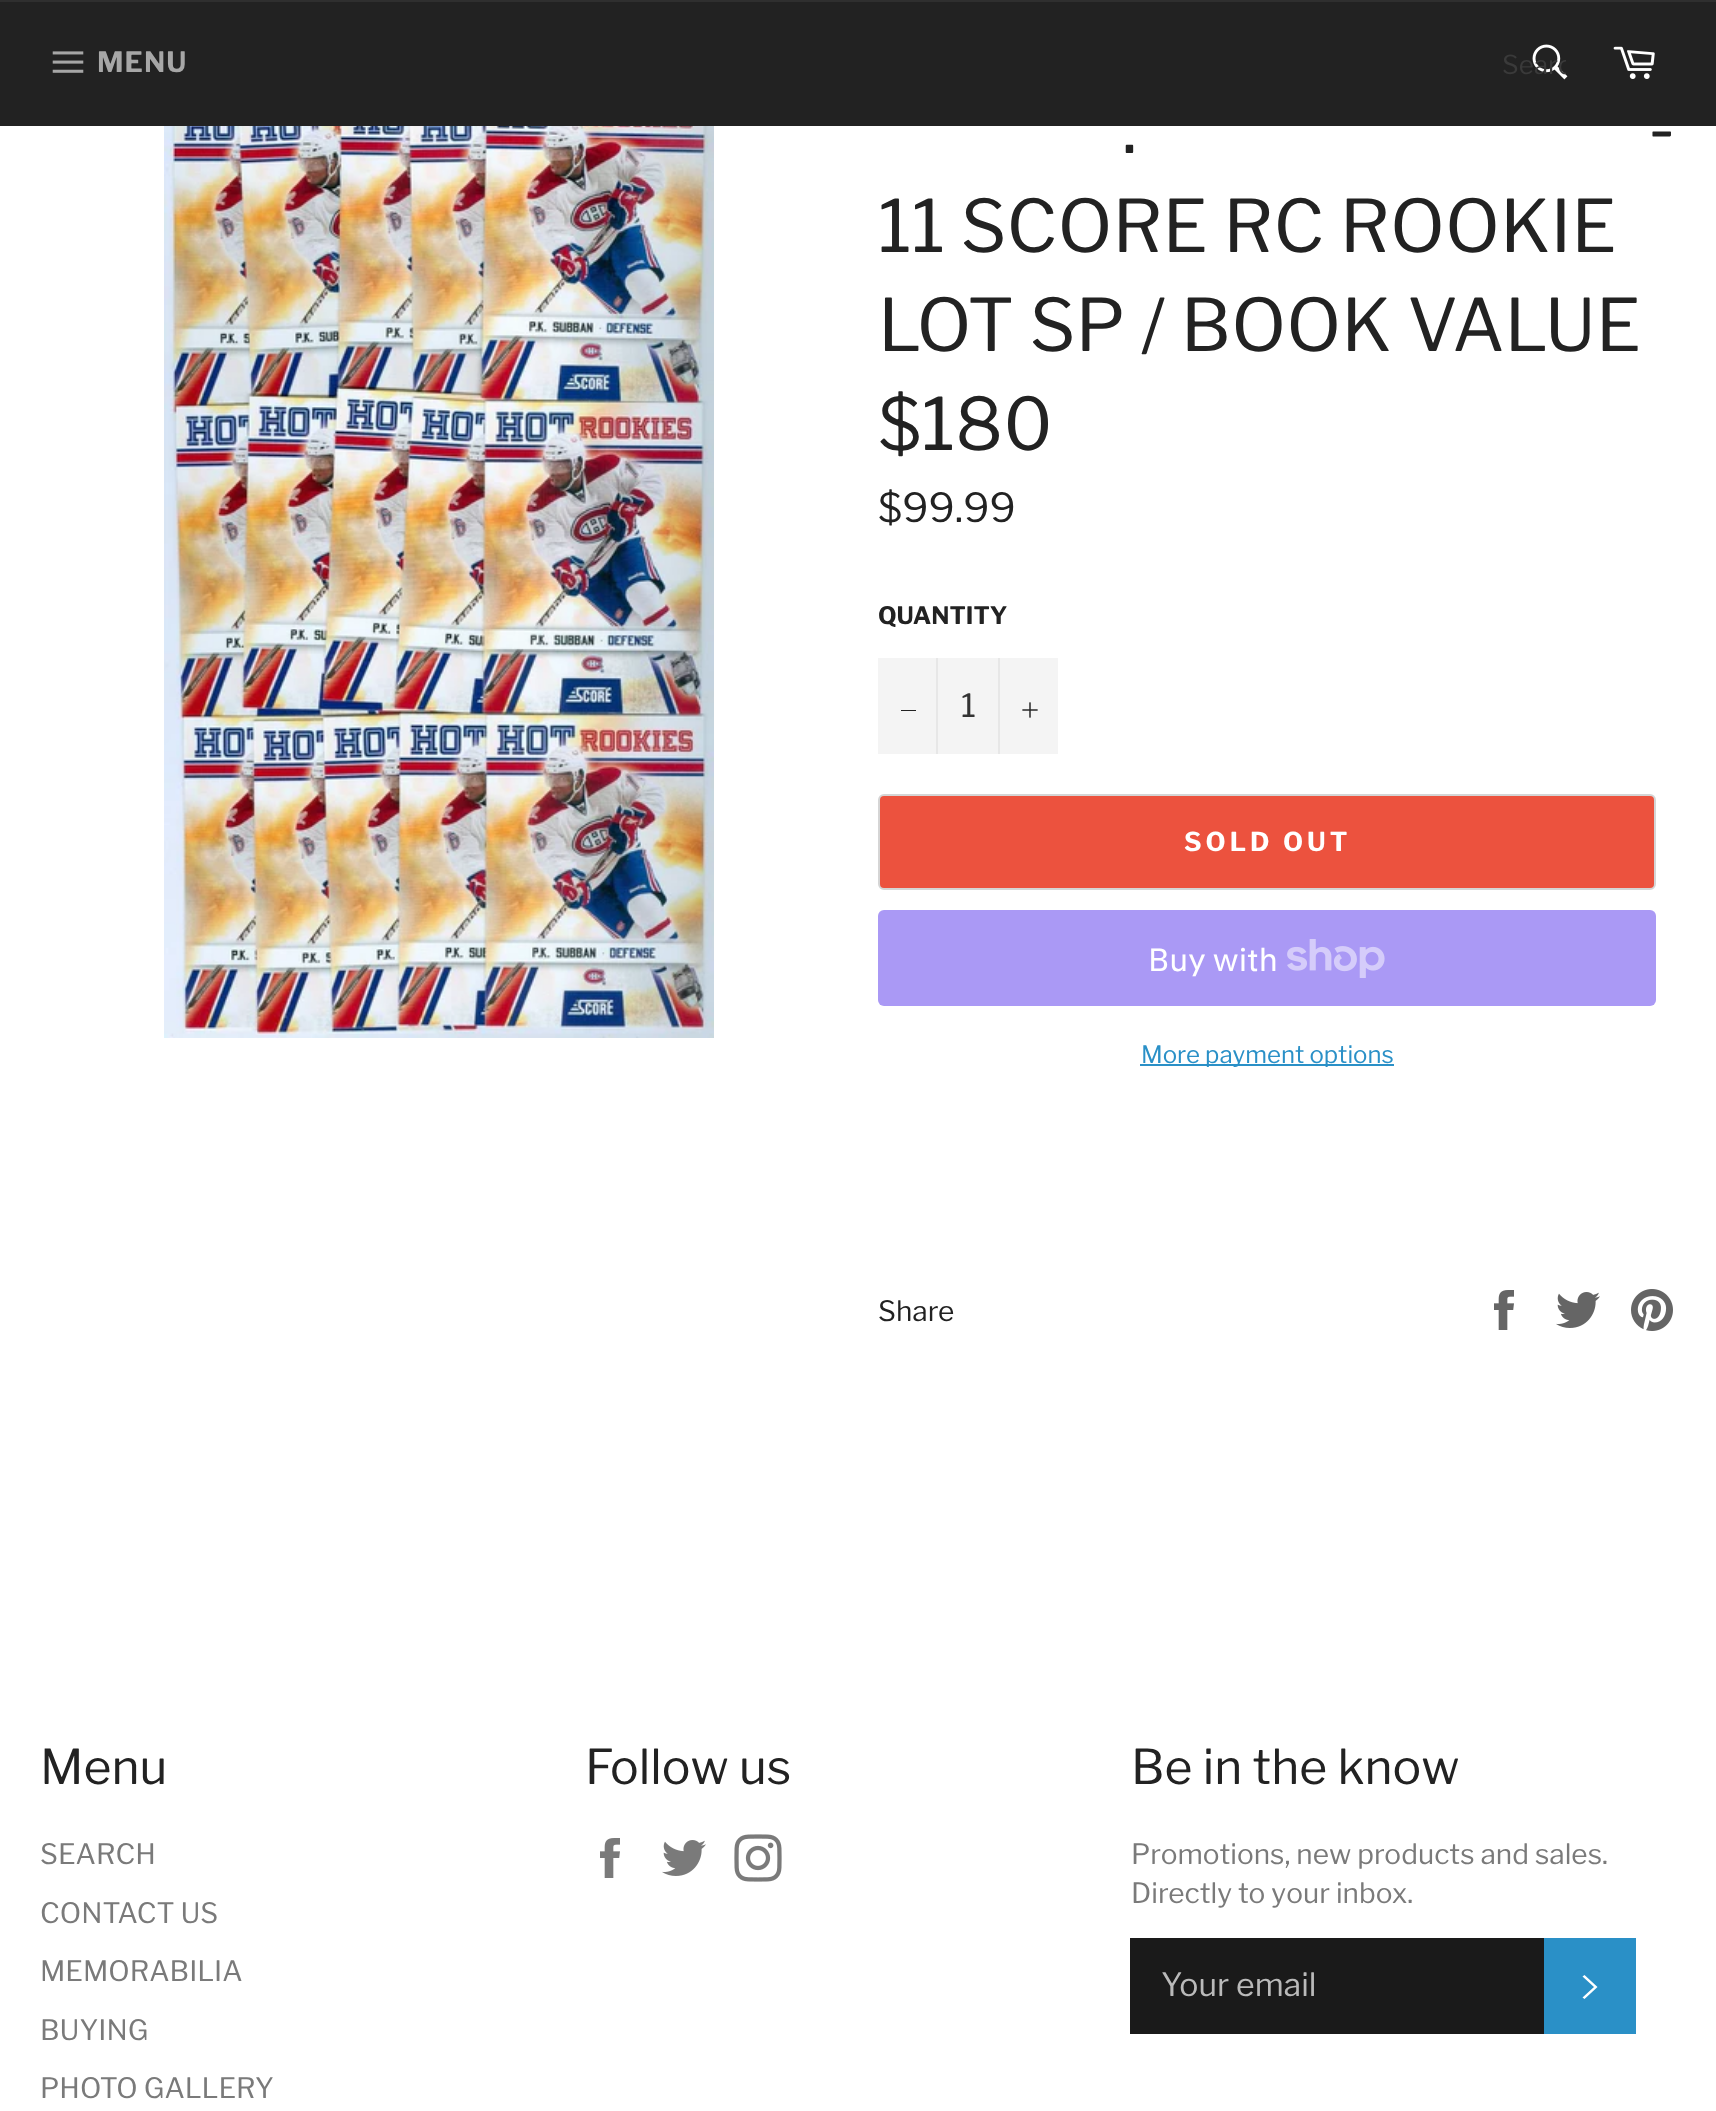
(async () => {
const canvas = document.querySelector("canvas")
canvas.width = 1716
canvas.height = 2111
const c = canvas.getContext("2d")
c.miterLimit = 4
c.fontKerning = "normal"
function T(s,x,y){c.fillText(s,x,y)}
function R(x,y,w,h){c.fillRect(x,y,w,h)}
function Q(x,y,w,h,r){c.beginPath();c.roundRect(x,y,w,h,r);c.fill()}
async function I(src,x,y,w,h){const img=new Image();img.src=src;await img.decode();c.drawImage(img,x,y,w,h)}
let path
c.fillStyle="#fff"
R(0,0,1716,2111)
c.fillStyle="#222"
R(0,2,1716,124)
c.fillStyle="#2f2f2f"
R(0,0,1716,2)
await I("1.png",52,51,32,22)
c.letterSpacing="1px"
c.font="bold 28px Libre Franklin"
c.fillStyle="#a7a7a7"
T("MENU",97,72)
await I("2.png",1532,44,36,36)
c.save()
c.beginPath()
c.rect(1502,48,64,32)
c.clip()
c.letterSpacing="0px"
c.font="26px Libre Franklin"
c.fillStyle="#3a3a3a"
T("Searc",1502,74)
c.restore()
await I("3.png",1613,46,42,33)
await I("4.png",164,126,550,912)
c.letterSpacing="0px"
c.font="72px Libre Franklin"
c.fillStyle="#222"
T("-",1648,153)
T(".",1122,153)
T("11 SCORE RC ROOKIE",878,252)
T("LOT SP / BOOK VALUE",878,351)
T("$180",878,450)
c.font="40px Libre Franklin"
T("$99.99",878,522)
c.font="bold 24px Libre Franklin"
T("QUANTITY",878,624)
c.fillStyle="#f4f4f4"
R(878,658,180,96)
c.fillStyle="#e7e7e7"
R(936,658,2,96)
c.fillStyle="#222"
R(901,710,15,1)
c.font="32px Libre Franklin"
c.fillStyle="#333"
T("1",961,717)
c.fillStyle="#e7e7e7"
R(998,658,2,96)
await I("5.png",1022,702,16,16)
c.fillStyle="#ec523e"
c.beginPath()
c.roundRect(879,795,776,94,5)
c.fill()
c.strokeStyle="#d5d5d5"
c.lineWidth=2
c.stroke()
c.letterSpacing="4px"
c.font="bold 26px Libre Franklin"
c.fillStyle="#fff"
T("SOLD OUT",1184,851)
c.fillStyle="#aa99f5"
Q(878,910,778,96,6)
c.letterSpacing="0px"
c.font="32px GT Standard"
c.fillStyle="#fff"
T("Buy with",1148,971)
await I("6.png",1287,939,98,39)
c.fillStyle="#2a90c7"
R(1140,1064,254,2)
c.font="24px Libre Franklin"
T("More payment options",1141,1063)
c.font="28px Libre Franklin"
c.fillStyle="#222"
T("Share",878,1321)
await I("7.png",1494,1290,20,40)
await I("8.png",1556,1292,44,36)
await I("9.png",1631,1289,42,42)
c.font="48px Libre Franklin"
T("Menu",40,1784)
c.font="28px Libre Franklin"
c.fillStyle="#7a7a7a"
T("SEARCH",40,1864)
T("CONTACT US",40,1923)
T("MEMORABILIA",40,1981)
T("BUYING",40,2040)
T("PHOTO GALLERY",40,2098)
c.font="48px Libre Franklin"
c.fillStyle="#222"
T("Follow us",585,1784)
await I("10.png",600,1838,20,40)
await I("11.png",662,1840,44,36)
await I("12.png",734,1834,48,48)
T("Be in the know",1131,1784)
c.font="28px Libre Franklin"
c.fillStyle="#7a7a7a"
T("Promotions, new products and sales.",1131,1864)
T("Directly to your inbox.",1131,1903)
c.fillStyle="#1a1a1a"
R(1130,1938,414,96)
c.font="32px Libre Franklin"
c.fillStyle="#bababa"
T("Your email",1161,1996)
c.fillStyle="#2a90c7"
R(1544,1938,92,96)
c.fillStyle="#fff"
path = new Path2D("M1582.5 1976.5l2-1.5l13 12l-13 12l-2-1.5l11.5-10.5z")
c.fill(path)
})()
